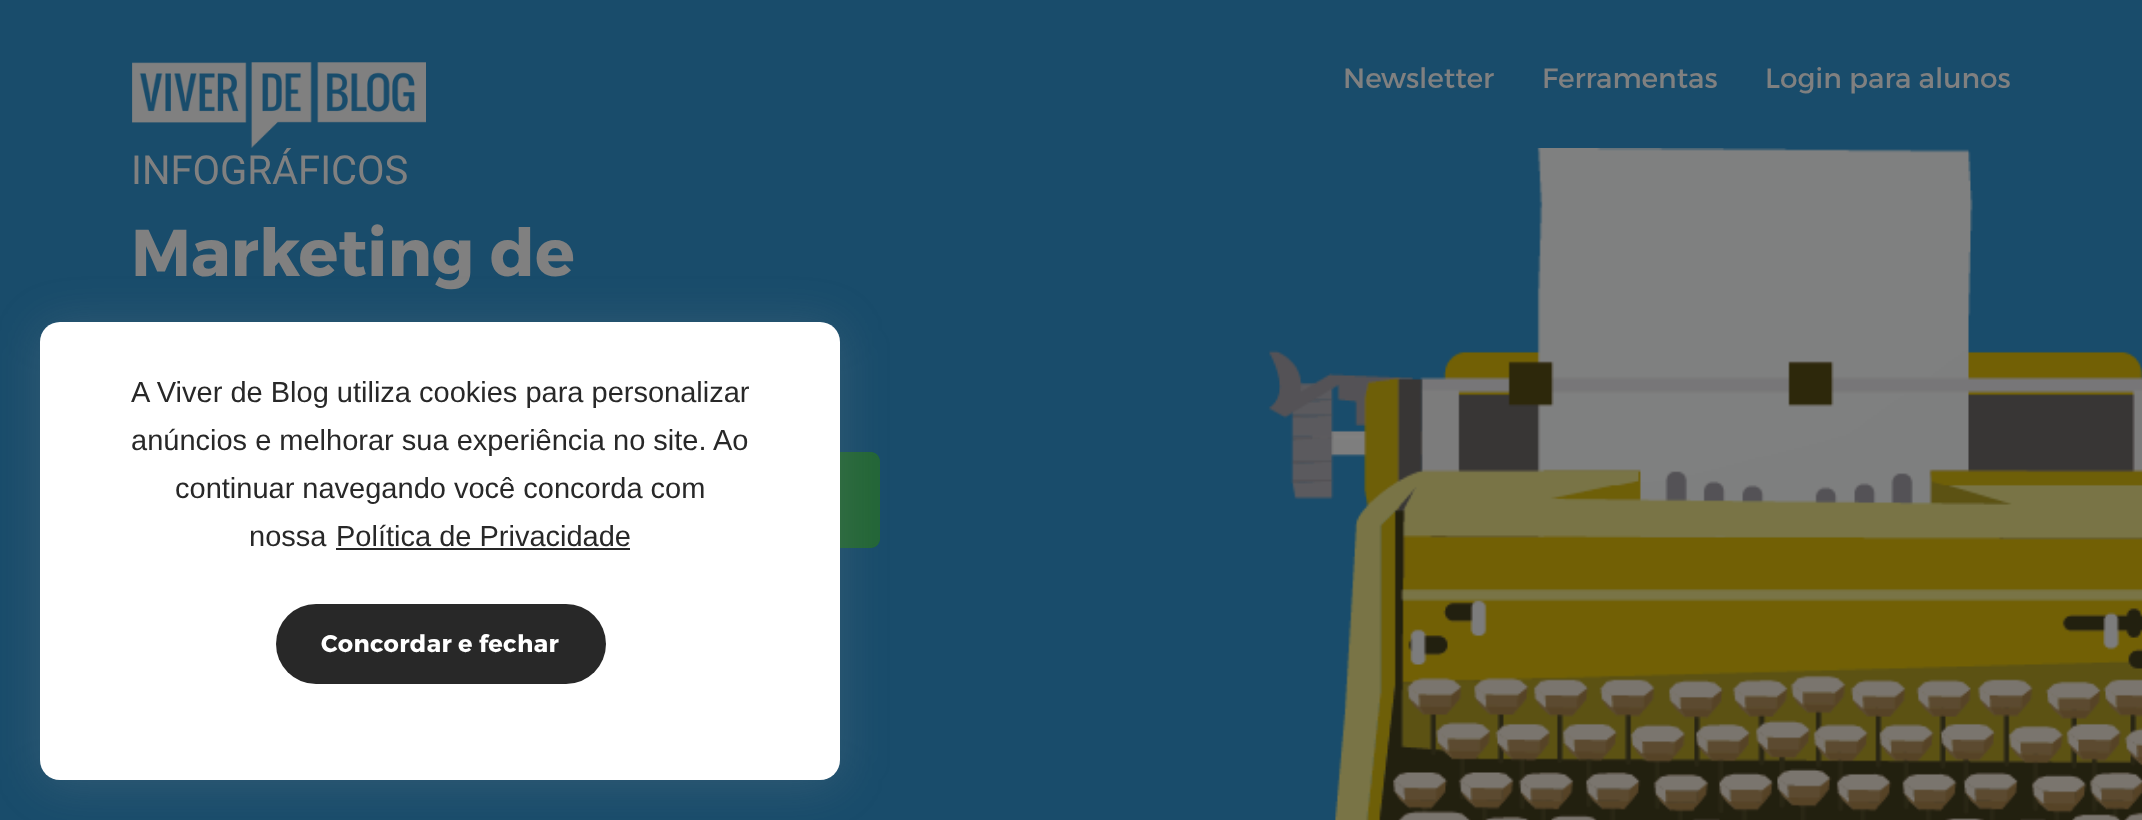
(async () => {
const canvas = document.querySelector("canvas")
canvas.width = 2142
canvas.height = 820
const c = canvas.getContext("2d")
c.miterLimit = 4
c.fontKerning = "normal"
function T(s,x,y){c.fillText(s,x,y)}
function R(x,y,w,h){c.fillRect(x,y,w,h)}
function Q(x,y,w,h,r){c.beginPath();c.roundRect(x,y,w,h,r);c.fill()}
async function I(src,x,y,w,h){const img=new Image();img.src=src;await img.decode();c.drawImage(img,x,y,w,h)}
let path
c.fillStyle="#194c6b"
R(0,0,2142,820)
c.font="40px Roboto"
c.fillStyle="#808080"
T("INFOGRÁFICOS",131,184)
await I("1.png",132,62,294,86)
c.font="28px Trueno"
T("Newsletter",1343,88)
T("Ferramentas",1542,88)
T("Login para alunos",1765,88)
c.font="bold 66px Trueno"
T("Marketing de",131,276)
c.fillStyle="#236637"
c.beginPath()
c.roundRect(586,452,294,96,[0,10,10,0])
c.fill()
path = new Path2D("M586 452h284c6 0 10 4 10 10v76c0 6-4 10-10 10h-284zm0 2h284c4 0 8 4 8 8v76c0 4-4 8-8 8h-284z")
c.fill(path,"evenodd")
await I("2.png",1268,148,874,672)
c.fillStyle="#9c9c9c33"
c.filter="blur(24px)"
c.beginPath()
c.roundRect(40,326,800,458,20)
c.fill()
c.filter="none"
c.fillStyle="#fff"
Q(40,322,800,458,20)
c.font="29px Liberation Sans"
c.fillStyle="#282828"
T("A Viver de Blog utiliza cookies para personalizar",131,402)
T("anúncios e melhorar sua experiência no site. Ao",131,450)
T("continuar navegando você concorda com",175,498)
T("nossa",249,546)
T("Política de Privacidade",336,546)
R(336,548,294,2)
Q(276,604,330,80,40)
c.letterSpacing="0.4px"
c.font="bold 24px Trueno"
c.fillStyle="#fff"
T("Concordar e fechar",321,652)
})()
